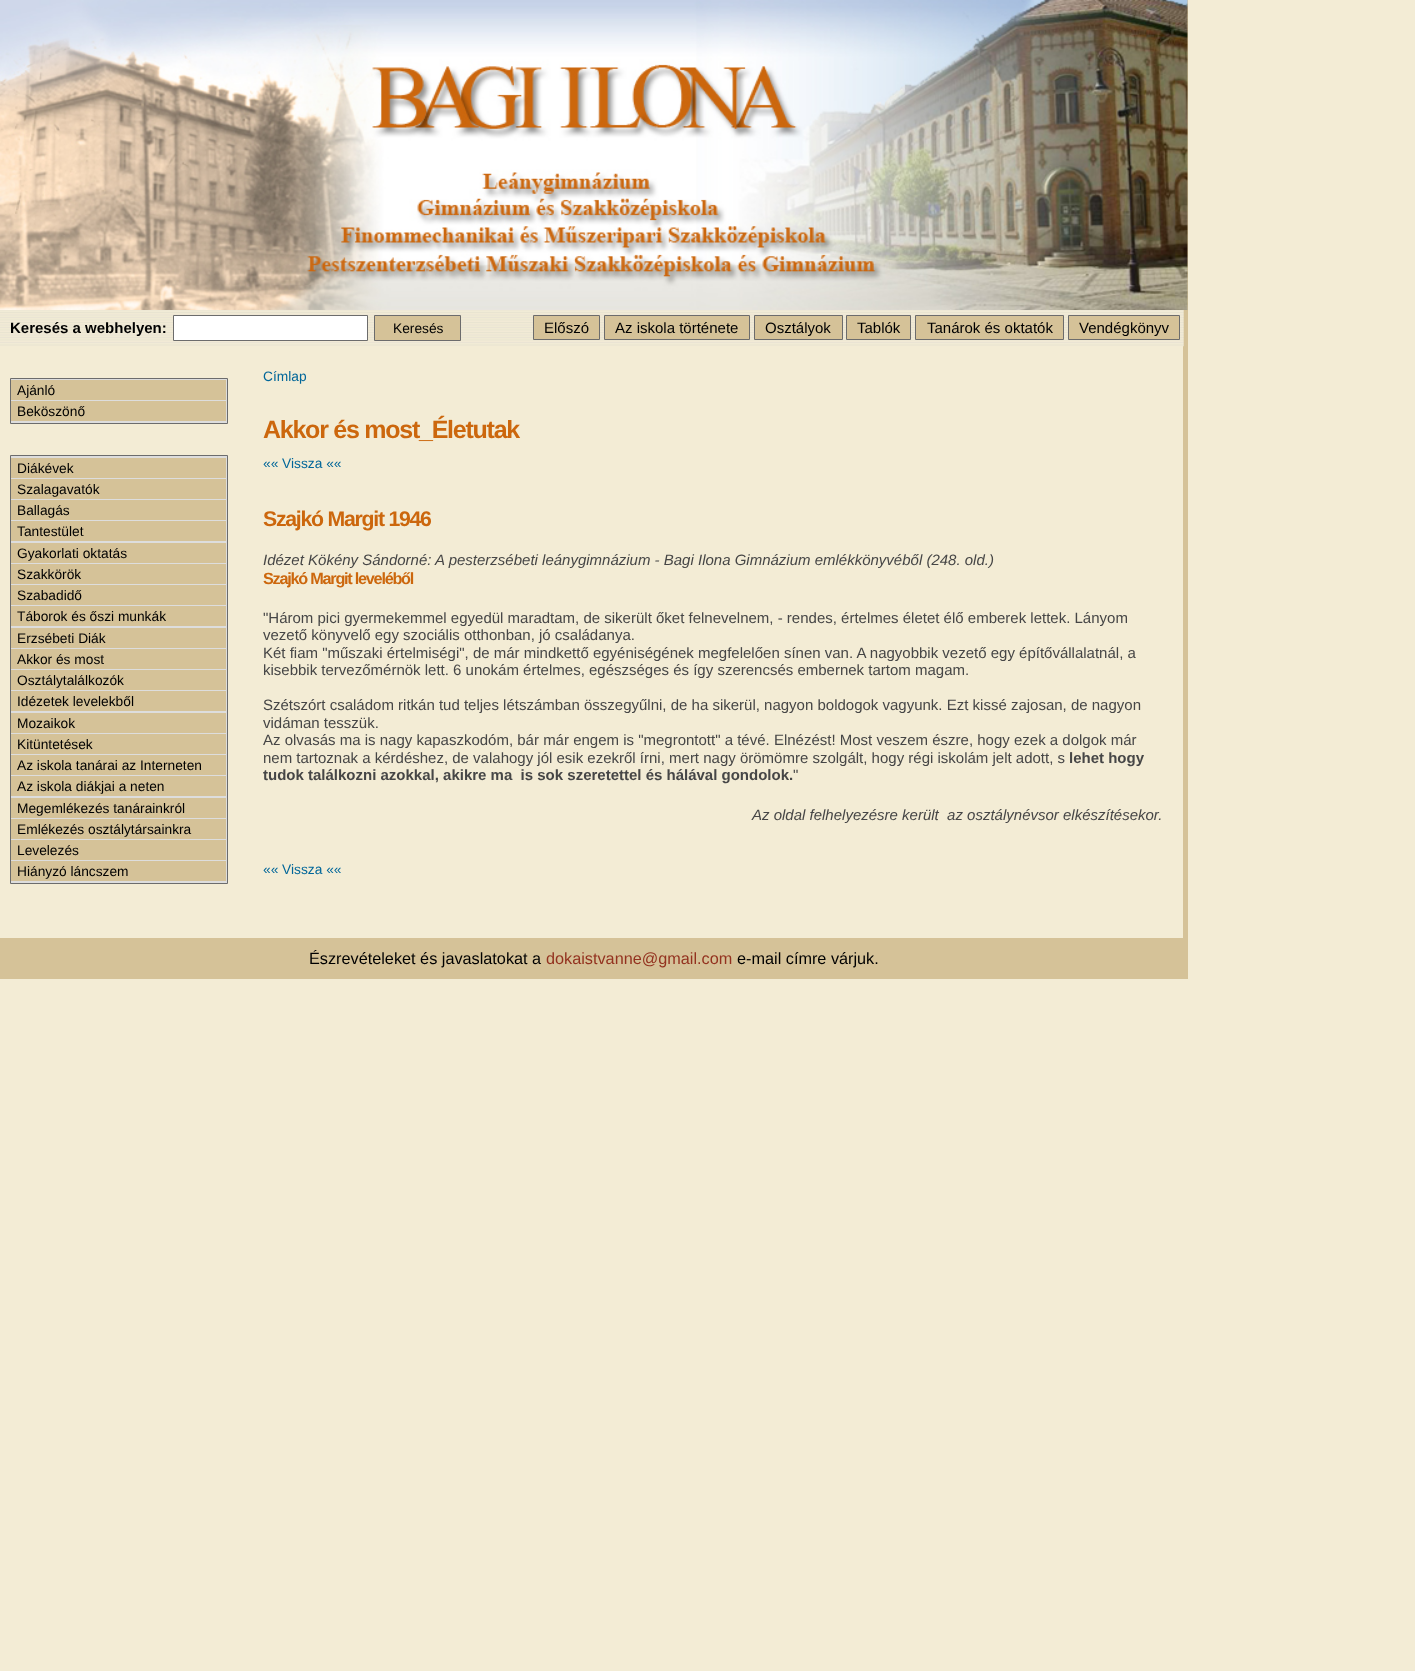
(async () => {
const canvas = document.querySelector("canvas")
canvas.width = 1415
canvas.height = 1671
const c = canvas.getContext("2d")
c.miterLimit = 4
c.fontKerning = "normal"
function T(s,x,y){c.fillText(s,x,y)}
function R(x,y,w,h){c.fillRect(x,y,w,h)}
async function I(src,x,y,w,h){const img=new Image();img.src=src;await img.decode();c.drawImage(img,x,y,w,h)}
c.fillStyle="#f3ecd5"
R(0,0,1415,1671)
c.fillStyle="#d5c298"
R(1183,0,5,938)
await I("1.png",0,0,1188,310)
await I("2.png",0,310,1184,37)
c.font="bold 15px Liberation Sans"
c.fillStyle="#000"
T("Keresés a webhelyen:",10,333)
c.fillStyle="#fff"
c.beginPath()
c.rect(173.5,315.5,194,25)
c.fill()
c.strokeStyle="#6c6c6c"
c.stroke()
c.fillStyle="#d5c298"
c.beginPath()
c.rect(374.5,315.5,86,25)
c.fill()
c.stroke()
c.font="13.75px Liberation Sans"
c.fillStyle="#000"
T("Keresés",393,333)
c.fillStyle="#d5c298"
c.beginPath()
c.rect(533.5,315.5,66,24)
c.fill()
c.stroke()
c.font="15px Liberation Sans"
c.fillStyle="#000"
T("Előszó",544,333)
c.fillStyle="#d5c298"
c.beginPath()
c.rect(604.5,315.5,145,24)
c.fill()
c.stroke()
c.fillStyle="#000"
T("Az iskola története",615,333)
c.fillStyle="#d5c298"
c.beginPath()
c.rect(754.5,315.5,88,24)
c.fill()
c.stroke()
c.fillStyle="#000"
T("Osztályok",765,333)
c.fillStyle="#d5c298"
c.beginPath()
c.rect(846.5,315.5,64,24)
c.fill()
c.stroke()
c.fillStyle="#000"
T("Tablók",857,333)
c.fillStyle="#d5c298"
c.beginPath()
c.rect(915.5,315.5,148,24)
c.fill()
c.stroke()
c.fillStyle="#000"
T("Tanárok és oktatók",927,333)
c.fillStyle="#d5c298"
c.beginPath()
c.rect(1068.5,315.5,111,24)
c.fill()
c.stroke()
c.fillStyle="#000"
T("Vendégkönyv",1079,333)
c.fillStyle="#ddd"
c.beginPath()
c.rect(10.5,378.5,217,45)
c.fill()
c.stroke()
c.fillStyle="#d5c298"
R(11,380,215,20)
c.font="13.75px Liberation Sans"
c.fillStyle="#000"
T("Ajánló",17,395)
c.fillStyle="#d5c298"
R(11,401,215,20)
c.fillStyle="#000"
T("Beköszönő",17,416)
c.fillStyle="#ddd"
c.beginPath()
c.rect(10.5,455.5,217,428)
c.fill()
c.stroke()
c.fillStyle="#d5c298"
R(11,458,215,20)
c.fillStyle="#000"
T("Diákévek",17,473)
c.fillStyle="#d5c298"
R(11,479,215,20)
c.fillStyle="#000"
T("Szalagavatók",17,494)
c.fillStyle="#d5c298"
R(11,500,215,20)
c.fillStyle="#000"
T("Ballagás",17,515)
c.fillStyle="#d5c298"
R(11,521,215,20)
c.fillStyle="#000"
T("Tantestület",17,536)
c.fillStyle="#d5c298"
R(11,543,215,20)
c.fillStyle="#000"
T("Gyakorlati oktatás",17,558)
c.fillStyle="#d5c298"
R(11,564,215,20)
c.fillStyle="#000"
T("Szakkörök",17,579)
c.fillStyle="#d5c298"
R(11,585,215,20)
c.fillStyle="#000"
T("Szabadidő",17,600)
c.fillStyle="#d5c298"
R(11,606,215,20)
c.fillStyle="#000"
T("Táborok és őszi munkák",17,621)
c.fillStyle="#d5c298"
R(11,628,215,20)
c.fillStyle="#000"
T("Erzsébeti Diák",17,643)
c.fillStyle="#d5c298"
R(11,649,215,20)
c.fillStyle="#000"
T("Akkor és most",17,664)
c.fillStyle="#d5c298"
R(11,670,215,20)
c.fillStyle="#000"
T("Osztálytalálkozók",17,685)
c.fillStyle="#d5c298"
R(11,691,215,20)
c.fillStyle="#000"
T("Idézetek levelekből",17,706)
c.fillStyle="#d5c298"
R(11,713,215,20)
c.fillStyle="#000"
T("Mozaikok",17,728)
c.fillStyle="#d5c298"
R(11,734,215,20)
c.fillStyle="#000"
T("Kitüntetések",17,749)
c.fillStyle="#d5c298"
R(11,755,215,20)
c.fillStyle="#000"
T("Az iskola tanárai az Interneten",17,770)
c.fillStyle="#d5c298"
R(11,776,215,20)
c.fillStyle="#000"
T("Az iskola diákjai a neten",17,791)
c.fillStyle="#d5c298"
R(11,798,215,20)
c.fillStyle="#000"
T("Megemlékezés tanárainkról",17,813)
c.fillStyle="#d5c298"
R(11,819,215,20)
c.fillStyle="#000"
T("Emlékezés osztálytársainkra",17,834)
c.fillStyle="#d5c298"
R(11,840,215,20)
c.fillStyle="#000"
T("Levelezés",17,855)
c.fillStyle="#d5c298"
R(11,861,215,20)
c.fillStyle="#000"
T("Hiányzó láncszem",17,876)
c.fillStyle="#069"
T("Címlap",263,381)
c.letterSpacing="-1.25px"
c.font="bold 25px Liberation Sans"
c.fillStyle="#cc670d"
T("Akkor és most_Életutak",263,438)
c.letterSpacing="0px"
c.font="13.75px Liberation Sans"
c.fillStyle="#069"
T("«« Vissza ««",263,468)
c.letterSpacing="-1.25px"
c.font="bold 21.25px Liberation Sans"
c.fillStyle="#cc670d"
T("Szajkó Margit 1946",263,526)
c.letterSpacing="0px"
c.font="italic 15px Liberation Sans"
c.fillStyle="#464646"
T("Idézet Kökény Sándorné: A pesterzsébeti leánygimnázium - Bagi Ilona Gimnázium emlékkönyvéből (248. old.)",263,565)
c.letterSpacing="-1.25px"
c.font="bold 16.25px Liberation Sans"
c.fillStyle="#cc670d"
T("Szajkó Margit leveléből",263,584)
c.letterSpacing="0px"
c.font="15px Liberation Sans"
c.fillStyle="#464646"
T("\"Három pici gyermekemmel egyedül maradtam, de sikerült őket felnevelnem, - rendes, értelmes életet élő emberek lettek. Lányom",263,623)
T("vezető könyvelő egy szociális otthonban, jó családanya.",263,640)
T("Két fiam \"műszaki értelmiségi\", de már mindkettő egyéniségének megfelelően sínen van. A nagyobbik vezető egy építővállalatnál, a",263,658)
T("kisebbik tervezőmérnök lett. 6 unokám értelmes, egészséges és így szerencsés embernek tartom magam.",263,675)
T("Szétszórt családom ritkán tud teljes létszámban összegyűlni, de ha sikerül, nagyon boldogok vagyunk. Ezt kissé zajosan, de nagyon",263,710)
T("vidáman tesszük.",263,728)
T("Az olvasás ma is nagy kapaszkodóm, bár már engem is \"megrontott\" a tévé. Elnézést! Most veszem észre, hogy ezek a dolgok már",263,745)
T("nem tartoznak a kérdéshez, de valahogy jól esik ezekről írni, mert nagy örömömre szolgált, hogy régi iskolám jelt adott, s",263,763)
c.font="bold 15px Liberation Sans"
T("lehet hogy",1069,763)
T("tudok találkozni azokkal, akikre ma  is sok szeretettel és hálával gondolok.",263,780)
c.font="15px Liberation Sans"
T("\"",793,780)
c.font="italic 15px Liberation Sans"
T("Az oldal felhelyezésre került  az osztálynévsor elkészítésekor.",752,820)
c.font="13.75px Liberation Sans"
c.fillStyle="#069"
T("«« Vissza ««",263,874)
c.fillStyle="#d5c298"
R(0,938,1188,41)
c.font="16.25px Liberation Sans"
c.fillStyle="#000"
T("Észrevételeket és javaslatokat a",309,964)
c.fillStyle="#93321f"
T("dokaistvanne@gmail.com",546,964)
c.fillStyle="#000"
T("e-mail címre várjuk.",737,964)
})()
